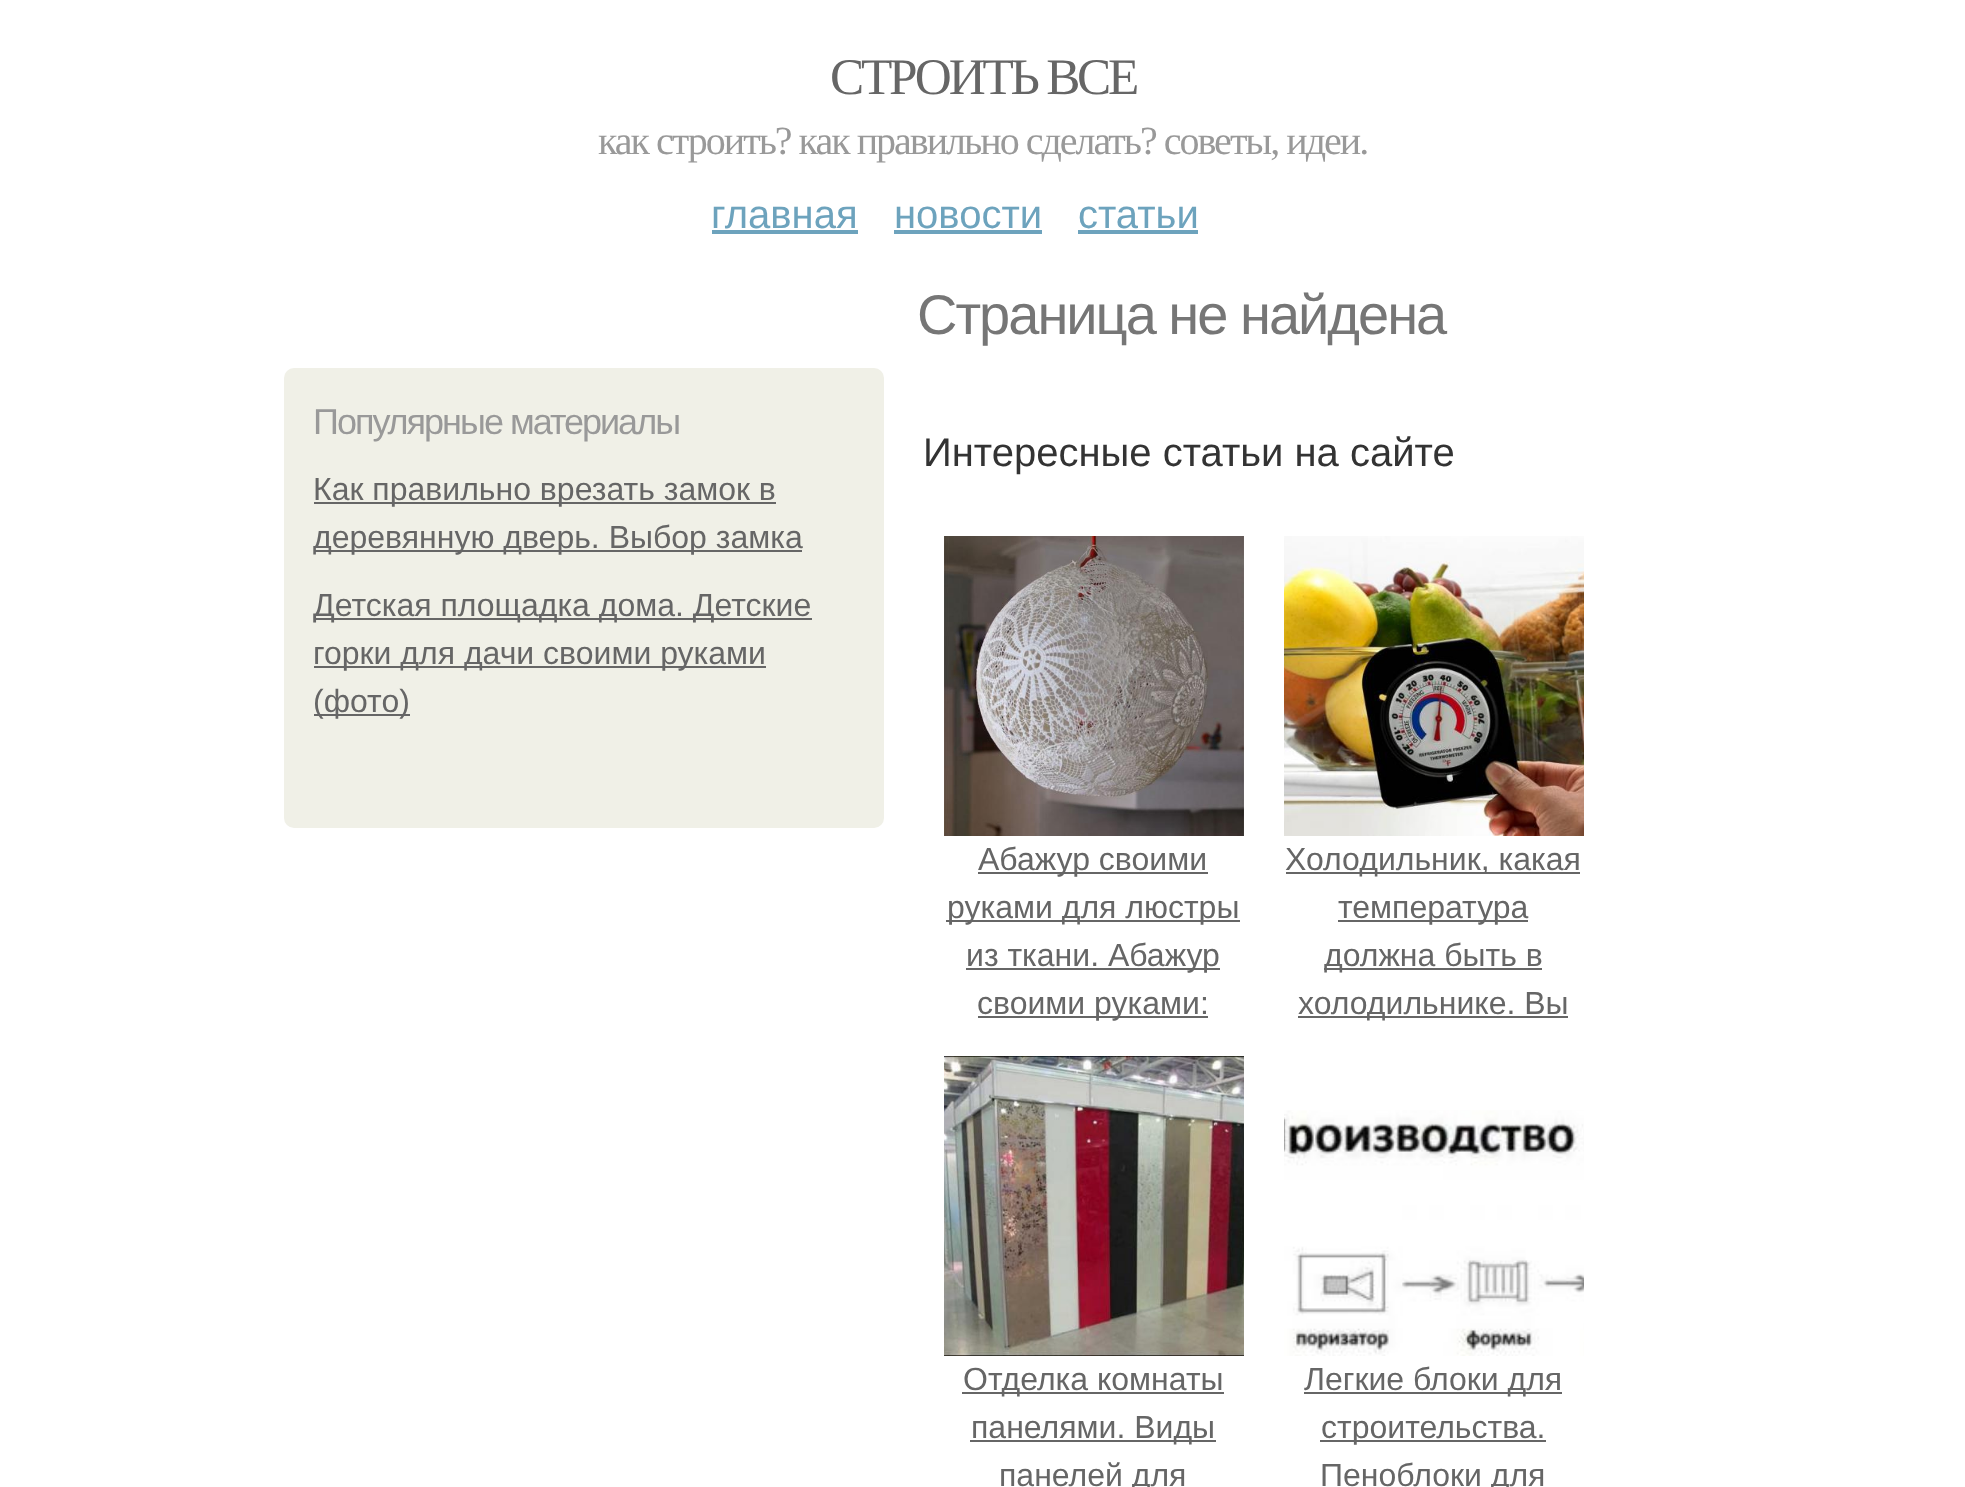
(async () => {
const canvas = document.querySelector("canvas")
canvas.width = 1965
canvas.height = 1487
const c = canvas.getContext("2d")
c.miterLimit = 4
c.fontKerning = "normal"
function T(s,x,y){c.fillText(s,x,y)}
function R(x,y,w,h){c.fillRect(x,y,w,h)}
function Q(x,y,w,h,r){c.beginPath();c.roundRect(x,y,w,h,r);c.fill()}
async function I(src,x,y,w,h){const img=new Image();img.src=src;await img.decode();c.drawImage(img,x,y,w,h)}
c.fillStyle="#fff"
R(0,0,1965,1487)
c.letterSpacing="-3.25px"
c.font="51.25px Liberation Serif"
c.fillStyle="#666"
T("СТРОИТЬ ВСЕ",830,94)
c.letterSpacing="-2px"
c.font="40px Liberation Serif"
c.fillStyle="#999"
T("как строить? как правильно сделать? советы, идеи.",598,154)
c.letterSpacing="0px"
c.font="40px Liberation Sans"
c.fillStyle="#6da3bd"
T("главная",711,228)
R(712,230,146,4)
T("новости",894,228)
R(894,230,148,4)
T("статьи",1078,228)
R(1078,230,120,4)
c.letterSpacing="-2px"
c.font="56px Liberation Sans"
c.fillStyle="#767676"
T("Страница не найдена",917,334)
c.fillStyle="#f0f0e7"
Q(284,368,600,460,10)
c.font="36px Liberation Sans"
c.fillStyle="#999"
T("Популярные материалы",313,434)
c.fillStyle="#666"
R(314,502,462,2)
c.letterSpacing="0px"
c.font="32px Liberation Sans"
T("Как правильно врезать замок в",313,500)
R(314,550,488,2)
T("деревянную дверь. Выбор замка",313,548)
R(314,618,498,2)
T("Детская площадка дома. Детские",313,616)
R(314,666,452,2)
T("горки для дачи своими руками",313,664)
R(314,714,96,2)
T("(фото)",313,712)
c.font="40px Liberation Sans"
c.fillStyle="#333"
T("Интересные статьи на сайте",923,466)
await I("1.png",944,536,300,300)
c.fillStyle="#666"
R(978,872,230,2)
c.font="32px Liberation Sans"
T("Абажур своими",978,870)
R(946,920,294,2)
T("руками для люстры",947,918)
R(966,968,254,2)
T("из ткани. Абажур",966,966)
R(978,1016,230,2)
T("своими руками:",977,1014)
await I("2.png",1284,536,300,300)
R(1286,872,294,2)
T("Холодильник, какая",1285,870)
R(1338,920,190,2)
T("температура",1338,918)
R(1324,968,218,2)
T("должна быть в",1324,966)
R(1298,1016,270,2)
T("холодильнике. Вы",1298,1014)
await I("3.png",944,1056,300,300)
R(962,1392,262,2)
T("Отделка комнаты",963,1390)
R(970,1440,246,2)
T("панелями. Виды",971,1438)
T("панелей для",999,1486)
await I("4.png",1284,1110,300,246)
R(1304,1392,258,2)
T("Легкие блоки для",1304,1390)
R(1320,1440,226,2)
T("строительства.",1321,1438)
T("Пеноблоки для",1320,1486)
})()
